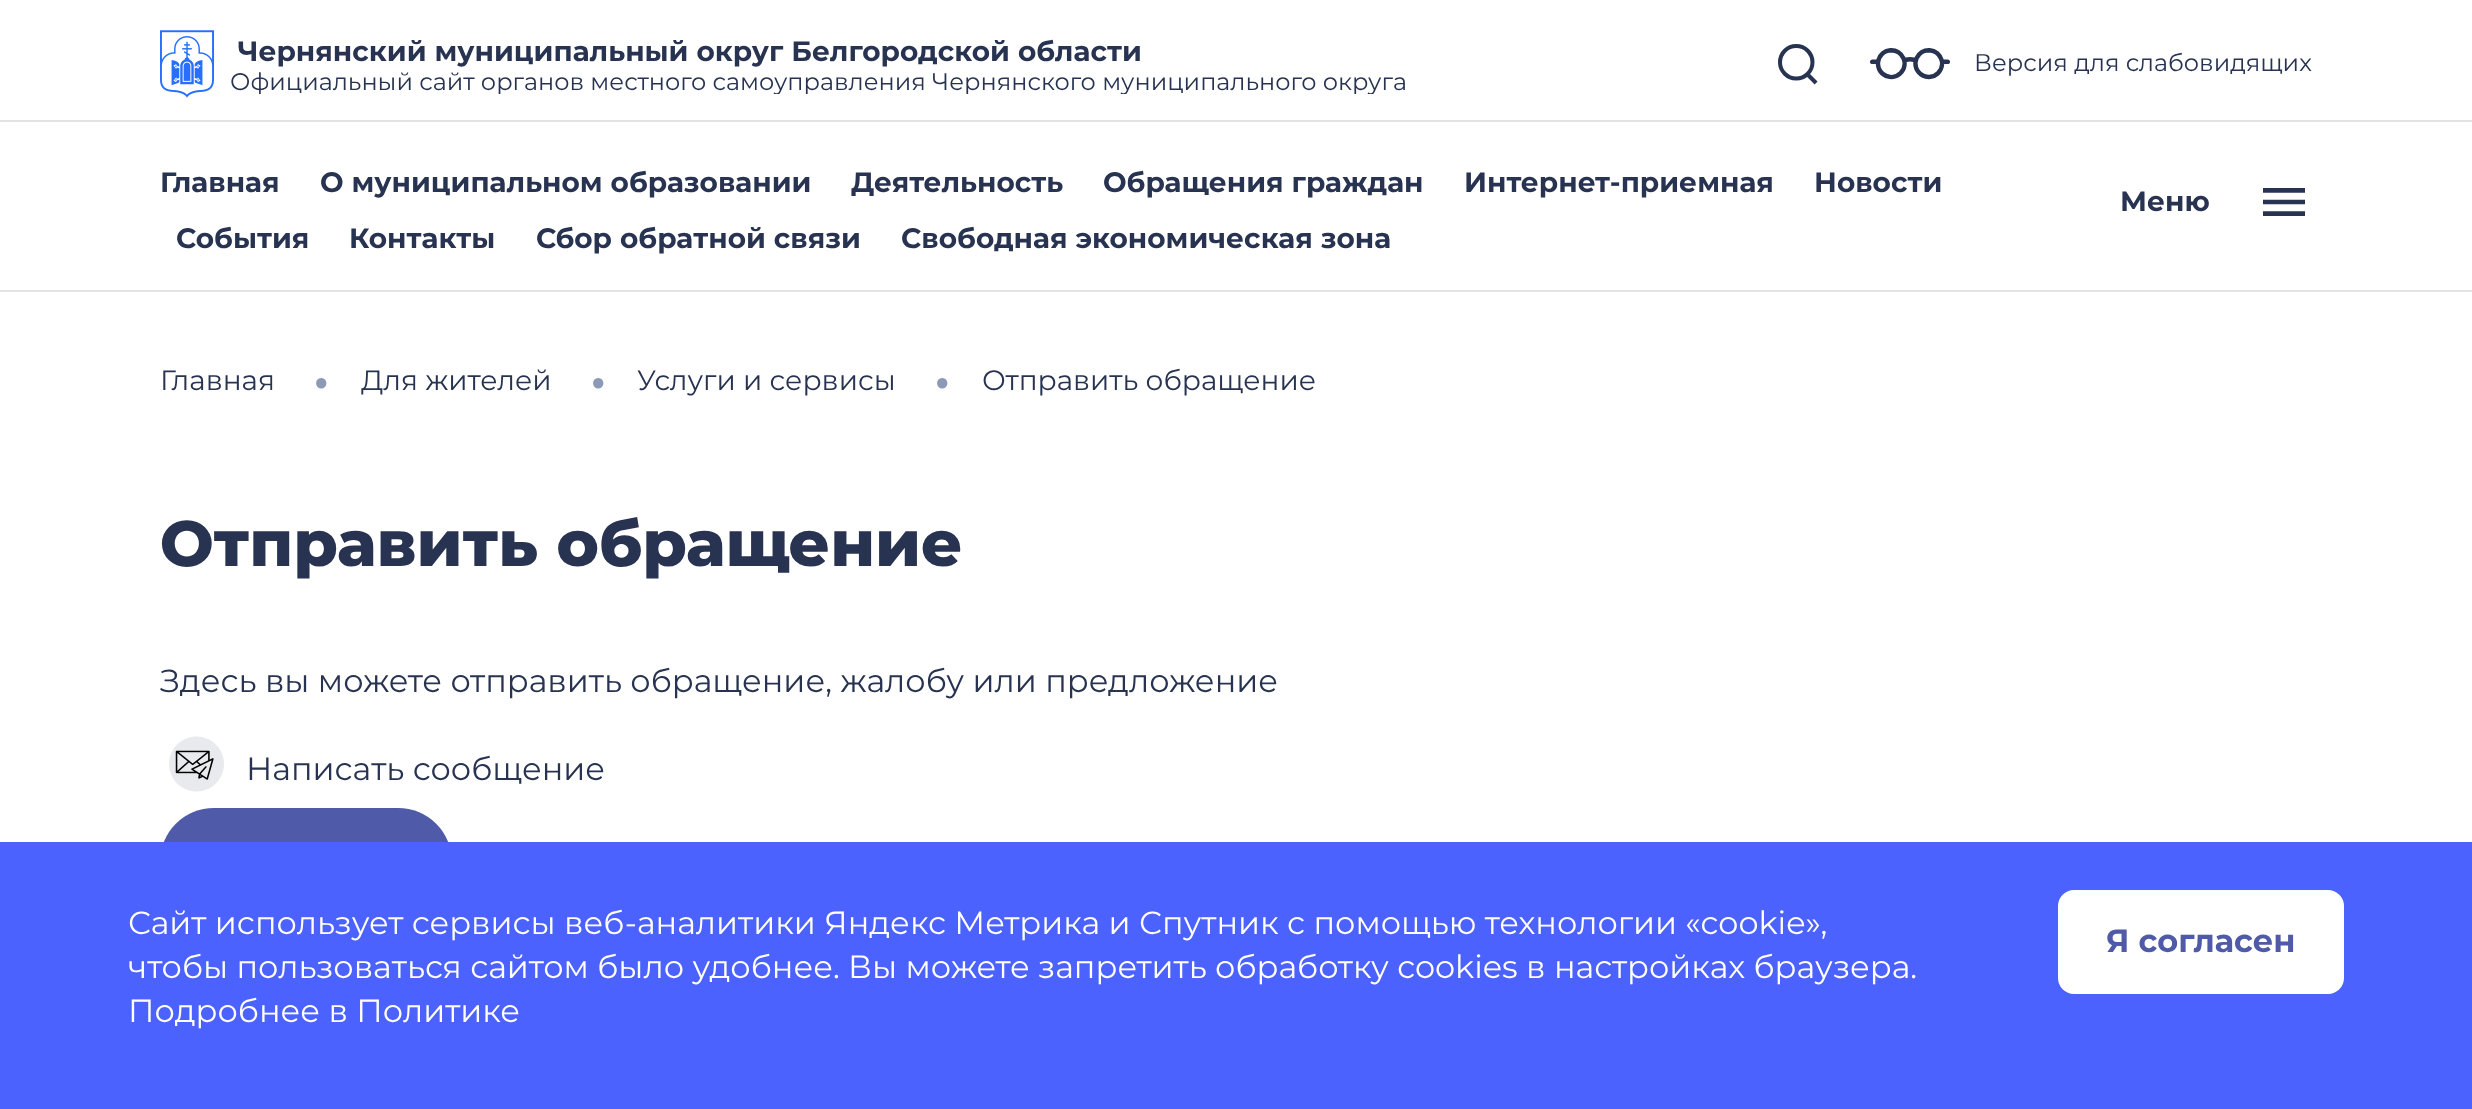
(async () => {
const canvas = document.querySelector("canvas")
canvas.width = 2472
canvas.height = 1109
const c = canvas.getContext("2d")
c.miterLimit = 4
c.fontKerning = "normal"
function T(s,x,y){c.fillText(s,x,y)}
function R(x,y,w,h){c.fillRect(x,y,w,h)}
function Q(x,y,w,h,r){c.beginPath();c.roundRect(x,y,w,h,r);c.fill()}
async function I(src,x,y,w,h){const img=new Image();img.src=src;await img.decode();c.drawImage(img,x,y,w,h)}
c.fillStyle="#fff"
R(0,0,2472,1109)
c.fillStyle="#e3e3e3"
R(0,120,2472,2)
await I("1.png",160,30,54,68)
c.font="bold 28px Montserrat"
c.fillStyle="#273350"
T("Чернянский муниципальный округ Белгородской области",238,61)
c.save()
c.beginPath()
c.rect(230,70,1496,24)
c.clip()
c.font="24px Montserrat"
T("Официальный сайт органов местного самоуправления Чернянского муниципального округа",230,90)
c.restore()
await I("2.png",1778,44,40,41)
await I("3.png",1870,48,80,32)
c.font="24px Montserrat"
T("Версия для слабовидящих",1974,71)
c.fillStyle="#e3e3e3"
R(0,290,2472,2)
c.font="bold 28px Montserrat"
c.fillStyle="#273350"
T("Главная",160,192)
T("О муниципальном образовании",320,192)
T("Деятельность",851,192)
T("Обращения граждан",1103,192)
T("Интернет-приемная",1464,192)
T("Новости",1814,192)
T("События",176,248)
T("Контакты",349,248)
T("Сбор обратной связи",536,248)
T("Свободная экономическая зона",901,248)
T("Меню",2120,211)
await I("4.png",2263,188,42,28)
c.font="28px Montserrat"
T("Главная",160,390)
c.font="24px Liberation Serif"
c.fillStyle="#8c9ab8"
T("●",314,390)
c.font="28px Montserrat"
c.fillStyle="#273350"
T("Для жителей",361,390)
c.font="24px Liberation Serif"
c.fillStyle="#8c9ab8"
T("●",591,390)
c.font="28px Montserrat"
c.fillStyle="#273350"
T("Услуги и сервисы",637,390)
c.font="24px Liberation Serif"
c.fillStyle="#8c9ab8"
T("●",935,390)
c.font="28px Montserrat"
c.fillStyle="#273350"
T("Отправить обращение",982,390)
c.font="800 64px Montserrat"
T("Отправить обращение",160,566)
c.font="32px Montserrat"
T("Здесь вы можете отправить обращение, жалобу или предложение",160,692)
await I("5.png",169,736,55,56)
T("Написать сообщение",246,780)
c.fillStyle="#4f5aa8"
Q(160,808,292,108,54)
c.fillStyle="#4b62ff"
R(0,842,2472,267)
c.fillStyle="#fff"
T("Сайт использует сервисы веб-аналитики Яндекс Метрика и Спутник с помощью технологии «cookie»,",128,934)
T("чтобы пользоваться сайтом было удобнее. Вы можете запретить обработку cookies в настройках браузера.",128,978)
T("Подробнее в Политике",128,1022)
Q(2058,890,286,104,16)
c.font="bold 32px Montserrat"
c.fillStyle="#4f5aa8"
T("Я согласен",2106,952)
})()
